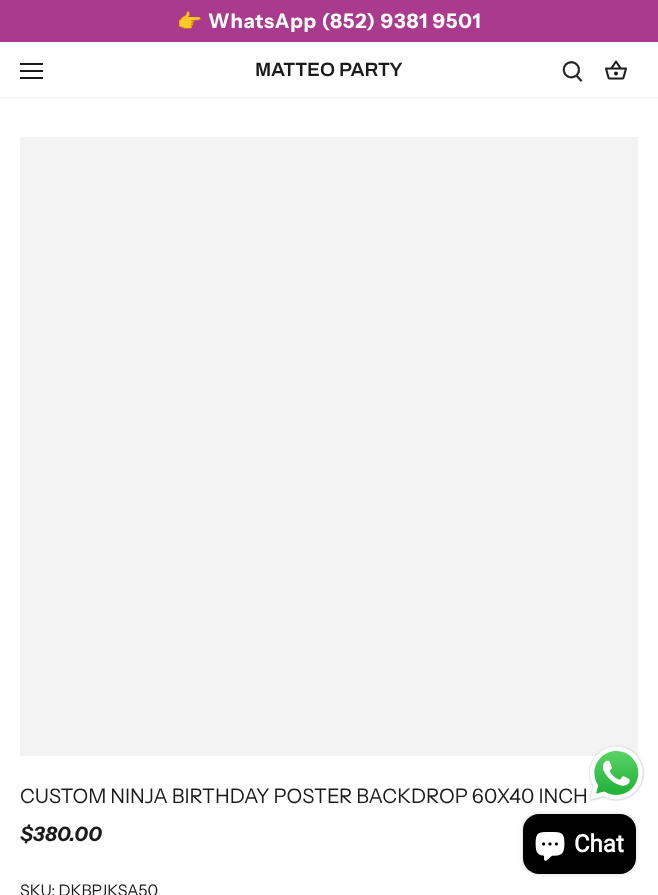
(async () => {
const canvas = document.querySelector("canvas")
canvas.width = 658
canvas.height = 895
const c = canvas.getContext("2d")
c.miterLimit = 4
c.fontKerning = "normal"
function T(s,x,y){c.fillText(s,x,y)}
function R(x,y,w,h){c.fillRect(x,y,w,h)}
function Q(x,y,w,h,r){c.beginPath();c.roundRect(x,y,w,h,r);c.fill()}
async function I(src,x,y,w,h){const img=new Image();img.src=src;await img.decode();c.drawImage(img,x,y,w,h)}
c.fillStyle="#fff"
R(0,0,658,895)
c.save()
c.beginPath()
c.rect(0,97,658,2)
c.clip()
c.fillStyle="#00000014"
c.filter="blur(1.5px)"
c.beginPath()
c.rect(-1,41,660,57)
c.fill()
c.filter="none"
c.restore()
c.fillStyle="#aa3a8e"
R(0,0,658,42)
c.letterSpacing="0.8px"
c.font="bold 20px Noto Color Emoji"
c.fillStyle="#fff"
T("👉",177,28)
c.save()
c.beginPath()
c.rect(20,10,618,22)
c.clip()
c.font="bold 20px Instrument Sans"
T("WhatsApp (852) 9381 9501",208,28)
c.restore()
c.fillStyle="#1b1b1b"
R(20,63,23,2)
R(20,70,23,2)
R(20,77,23,2)
c.letterSpacing="0px"
c.font="600 19.25px Archivo"
T("MATTEO PARTY",255,76)
await I("1.png",562,61,21,21)
await I("2.png",605,60,22,20)
c.fillStyle="#f3f3f3"
R(20,137,618,619)
c.font="20px Instrument Sans"
c.fillStyle="#1b1b1b"
T("CUSTOM NINJA BIRTHDAY POSTER BACKDROP 60X40 INCH",20,803)
c.font="italic bold 20px Instrument Sans"
T("$380.00",20,841)
c.font="16px Instrument Sans"
T("SKU: DKBPJKSA50",20,896)
await I("3.png",588,745,57,57)
c.fillStyle="#00000026"
c.filter="blur(2.5px)"
c.beginPath()
c.roundRect(523,814,113,60,16)
c.fill()
c.filter="none"
c.fillStyle="#000"
Q(523,814,113,60,16)
await I("4.png",535,832,30,29)
c.font="bold 24px Roboto"
c.fillStyle="#fff"
T("Chat",574,852)
})()
